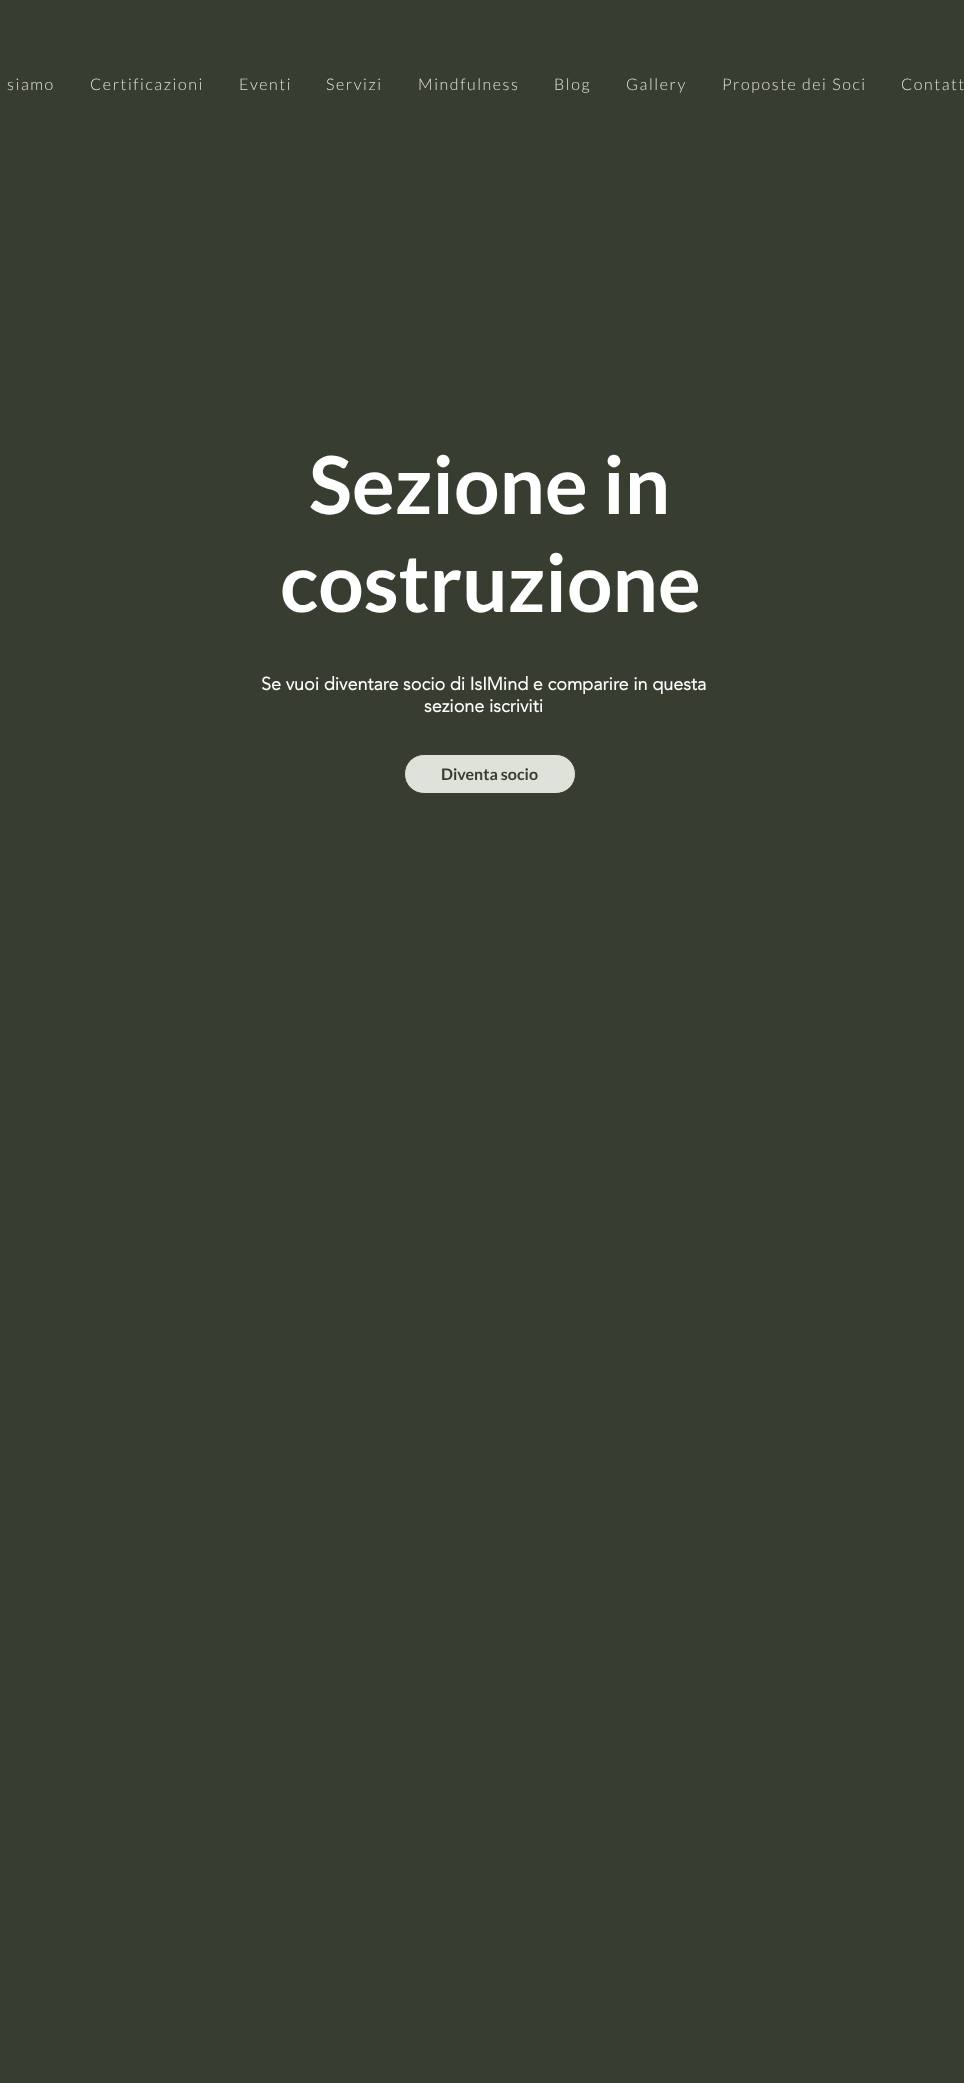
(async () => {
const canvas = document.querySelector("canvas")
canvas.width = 964
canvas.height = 2083
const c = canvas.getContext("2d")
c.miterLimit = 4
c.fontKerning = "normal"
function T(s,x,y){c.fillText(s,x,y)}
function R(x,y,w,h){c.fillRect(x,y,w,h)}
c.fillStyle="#383d31"
R(0,0,964,2083)
c.letterSpacing="1.6px"
c.font="300 16px Lato"
c.fillStyle="#dee2da"
T("siamo",7,90)
T("Certificazioni",90,90)
T("Eventi",239,90)
T("Servizi",326,90)
T("Mindfulness",418,90)
T("Blog",554,90)
T("Gallery",626,90)
T("Proposte dei Soci",722,90)
T("Contatt",901,90)
c.letterSpacing="0px"
c.font="bold 80px Lato"
c.fillStyle="#fff"
T("Sezione in",309,514)
T("costruzione",280,612)
c.font="bold 18px 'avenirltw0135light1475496'"
T("Se vuoi diventare socio di IsIMind e comparire in questa",261,690)
T("sezione iscriviti",424,712)
c.fillStyle="#dee2da"
c.beginPath()
c.roundRect(404.5,754.5,171,39,19.5)
c.fill()
c.strokeStyle="#383d31"
c.stroke()
c.font="bold 16px Lato"
c.fillStyle="#383d31"
T("Diventa socio",441,780)
})()
